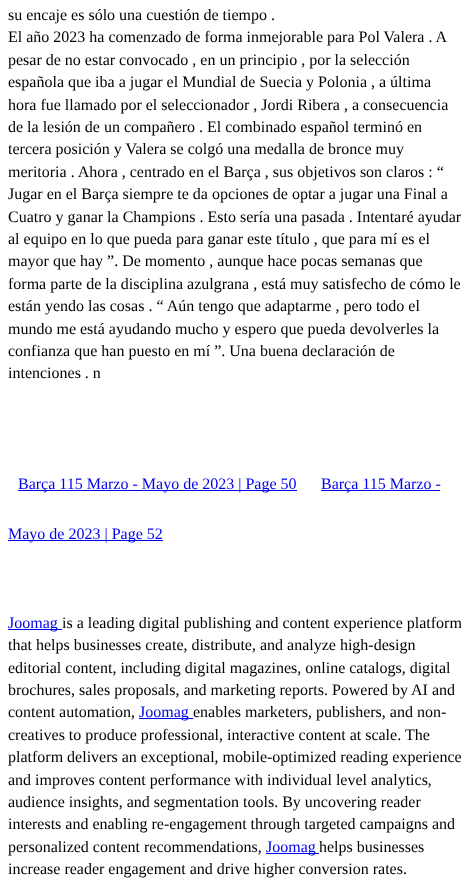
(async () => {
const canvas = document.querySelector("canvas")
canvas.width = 471
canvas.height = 889
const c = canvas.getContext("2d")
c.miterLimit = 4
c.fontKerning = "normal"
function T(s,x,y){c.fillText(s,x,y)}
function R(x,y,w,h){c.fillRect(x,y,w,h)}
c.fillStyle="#fff"
R(0,0,471,889)
c.font="16px Liberation Serif"
c.fillStyle="#000"
T("su encaje es sólo una cuestión de tiempo .",8,20)
T("El año 2023 ha comenzado de forma inmejorable para Pol Valera . A",8,42)
T("pesar de no estar convocado , en un principio , por la selección",8,65)
T("española que iba a jugar el Mundial de Suecia y Polonia , a última",8,87)
T("hora fue llamado por el seleccionador , Jordi Ribera , a consecuencia",8,110)
T("de la lesión de un compañero . El combinado español terminó en",8,132)
T("tercera posición y Valera se colgó una medalla de bronce muy",8,154)
T("meritoria . Ahora , centrado en el Barça , sus objetivos son claros : “",8,177)
T("Jugar en el Barça siempre te da opciones de optar a jugar una Final a",8,199)
T("Cuatro y ganar la Champions . Esto sería una pasada . Intentaré ayudar",8,222)
T("al equipo en lo que pueda para ganar este título , que para mí es el",8,244)
T("mayor que hay ”. De momento , aunque hace pocas semanas que",8,266)
T("forma parte de la disciplina azulgrana , está muy satisfecho de cómo le",8,289)
T("están yendo las cosas . “ Aún tengo que adaptarme , pero todo el",8,311)
T("mundo me está ayudando mucho y espero que pueda devolverles la",8,334)
T("confianza que han puesto en mí ”. Una buena declaración de",8,356)
T("intenciones . n",8,378)
c.fillStyle="#00e"
R(18,490,279,1)
T("Barça 115 Marzo - Mayo de 2023 | Page 50",18,489)
R(321,490,119,1)
T("Barça 115 Marzo -",321,489)
R(8,540,155,1)
T("Mayo de 2023 | Page 52",8,539)
R(8,629,54,1)
T("Joomag",8,628)
c.fillStyle="#000"
T("is a leading digital publishing and content experience platform",62,628)
T("that helps businesses create, distribute, and analyze high-design",8,650)
T("editorial content, including digital magazines, online catalogs, digital",8,673)
T("brochures, sales proposals, and marketing reports. Powered by AI and",8,695)
T("content automation,",8,717)
c.fillStyle="#00e"
R(139,718,54,1)
T("Joomag",139,717)
c.fillStyle="#000"
T("enables marketers, publishers, and non-",193,717)
T("creatives to produce professional, interactive content at scale. The",8,740)
T("platform delivers an exceptional, mobile-optimized reading experience",8,762)
T("and improves content performance with individual level analytics,",8,785)
T("audience insights, and segmentation tools. By uncovering reader",8,807)
T("interests and enabling re-engagement through targeted campaigns and",8,829)
T("personalized content recommendations,",8,852)
c.fillStyle="#00e"
R(266,853,53,1)
T("Joomag",266,852)
c.fillStyle="#000"
T("helps businesses",319,852)
T("increase reader engagement and drive higher conversion rates.",8,874)
})()
